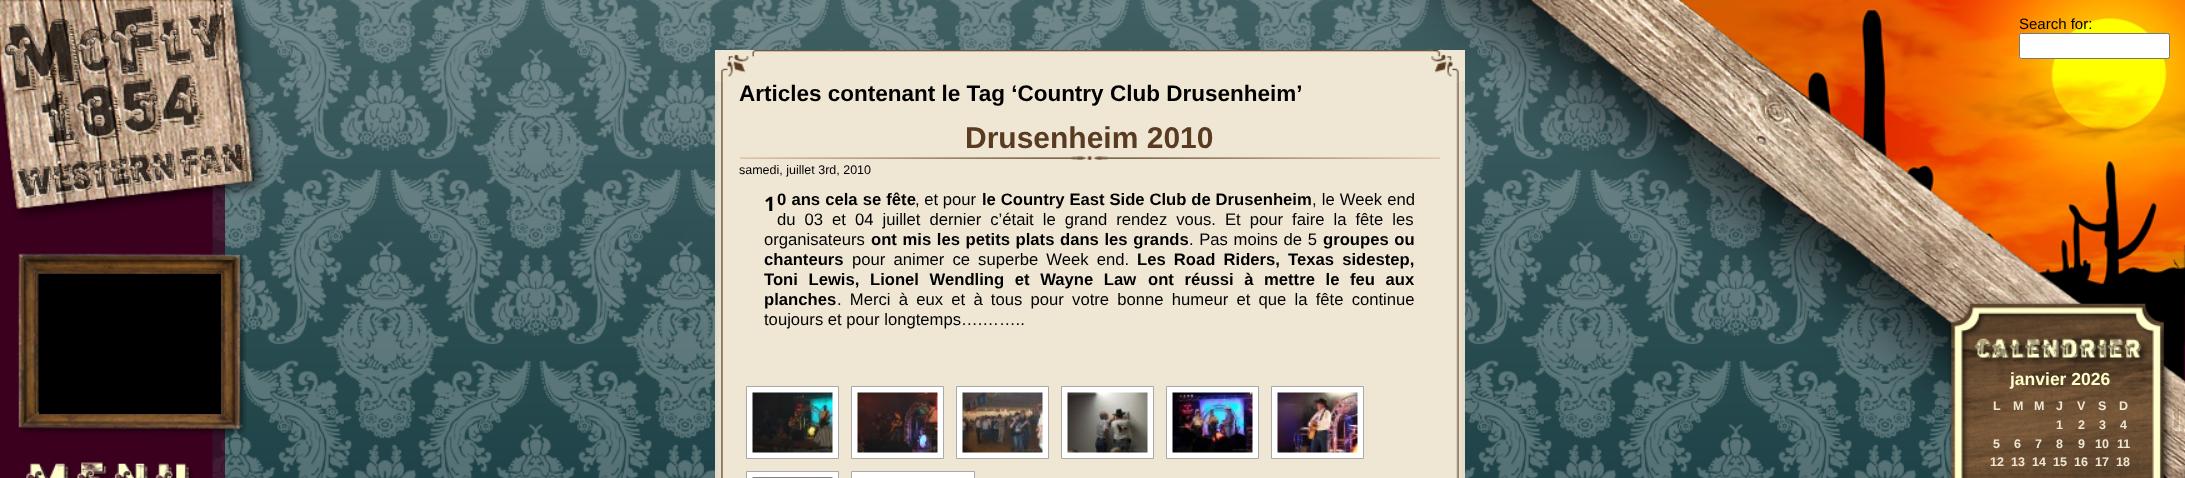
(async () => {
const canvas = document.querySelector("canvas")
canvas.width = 2185
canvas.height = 478
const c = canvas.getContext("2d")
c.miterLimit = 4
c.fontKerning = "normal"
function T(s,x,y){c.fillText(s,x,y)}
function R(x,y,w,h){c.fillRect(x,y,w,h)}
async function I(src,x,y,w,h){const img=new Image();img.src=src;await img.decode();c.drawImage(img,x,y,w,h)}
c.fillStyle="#022b30"
R(0,0,2185,478)
await I("1.png",212,0,1740,478)
await I("2.png",212,0,1741,478)
await I("3.png",0,66,225,412)
await I("4.png",0,0,267,220)
await I("5.png",17,253,230,183)
c.fillStyle="#000"
R(39,274,182,140)
await I("6.png",26,462,168,16)
await I("17.png",2163,245,22,233)
await I("18.png",1388,0,797,478)
c.fillStyle="#efe7d4"
R(715,50,750,32)
await I("7.png",721,50,738,32)
await I("8.png",715,81,750,397)
c.font="bold 22.5px Liberation Sans"
c.fillStyle="#000"
T("Articles contenant le Tag ‘Country Club Drusenheim’",739,101)
await I("9.png",740,156,700,4)
c.font="bold 30px Liberation Sans"
c.fillStyle="#583b21"
T("Drusenheim 2010",965,148)
c.font="12.5px Liberation Sans"
c.fillStyle="#000"
T("samedi, juillet 3rd, 2010",739,174)
c.font="bold 20px Noto Sans"
T("1",764,211)
c.wordSpacing="0.5px"
c.font="bold 16.65px Liberation Sans"
T("0 ans cela se fête",777,205)
c.wordSpacing="0px"
c.font="16.65px Liberation Sans"
T(", et pour",915,205)
c.wordSpacing="0.25px"
c.font="bold 16.65px Liberation Sans"
T("le Country East Side Club de Drusenheim",982,205)
c.wordSpacing="0.5px"
c.font="16.65px Liberation Sans"
T(", le Week end",1312,205)
c.wordSpacing="4.4px"
T("du 03 et 04 juillet dernier c’était le grand rendez vous. Et pour faire la fête les",777,225)
c.wordSpacing="0px"
T("organisateurs",764,245)
c.wordSpacing="1px"
c.font="bold 16.65px Liberation Sans"
T("ont mis les petits plats dans les grands",871,245)
c.font="16.65px Liberation Sans"
T(". Pas moins de 5",1189,245)
c.font="bold 16.65px Liberation Sans"
T("groupes ou",1323,245)
c.wordSpacing="0px"
T("chanteurs",764,265)
c.wordSpacing="3.5px"
c.font="16.65px Liberation Sans"
T("pour animer ce superbe Week end.",852,265)
c.font="bold 16.65px Liberation Sans"
T("Les Road Riders, Texas sidestep,",1137,265)
c.wordSpacing="6px"
T("Toni Lewis, Lionel Wendling et Wayne Law",764,285)
T("ont réussi à mettre le feu aux",1148,285)
c.wordSpacing="0px"
T("planches",764,305)
c.wordSpacing="3.6px"
c.font="16.65px Liberation Sans"
T(". Merci à eux et à tous pour votre bonne humeur et que la fête continue",837,305)
c.wordSpacing="0px"
T("toujours et pour longtemps….……..",764,325)
c.fillStyle="#fff"
c.beginPath()
c.rect(746.5,386.5,92,72)
c.fill()
c.strokeStyle="#a9a9a9"
c.stroke()
await I("10.png",752,392,81,61)
c.beginPath()
c.rect(851.5,386.5,92,72)
c.fill()
c.stroke()
await I("11.png",857,392,81,61)
c.beginPath()
c.rect(956.5,386.5,92,72)
c.fill()
c.stroke()
await I("12.png",962,392,81,61)
c.beginPath()
c.rect(1061.5,386.5,92,72)
c.fill()
c.stroke()
await I("13.png",1067,392,81,61)
c.beginPath()
c.rect(1166.5,386.5,92,72)
c.fill()
c.stroke()
await I("14.png",1172,392,81,61)
c.beginPath()
c.rect(1271.5,386.5,92,72)
c.fill()
c.stroke()
await I("15.png",1277,392,81,61)
c.beginPath()
c.rect(746.5,471.5,92,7)
c.fill()
c.stroke()
await I("16.png",752,477,81,1)
c.beginPath()
c.rect(851.5,471.5,123,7)
c.fill()
c.stroke()
c.font="15px Liberation Sans"
c.fillStyle="#000"
T("Search for:",2019,29)
c.fillStyle="#fff"
c.beginPath()
c.roundRect(2019.5,33.5,150,25,2)
c.fill()
c.strokeStyle="#767676"
c.stroke()
await I("19.png",1948,300,224,178)
c.font="bold 17.5px Liberation Sans"
c.fillStyle="#ffc"
T("janvier 2026",2010,385)
c.font="bold 12.5px Liberation Sans"
c.fillStyle="#efe7d4"
T("L",1993,410)
T("M",2013,410)
T("M",2034,410)
T("J",2056,410)
T("V",2077,410)
T("S",2098,410)
T("D",2119,410)
T("1",2056,429)
T("2",2078,429)
T("3",2099,429)
T("4",2120,429)
T("5",1993,448)
T("6",2014,448)
T("7",2035,448)
T("8",2056,448)
T("9",2078,448)
T("10",2095,448)
T("11",2117,448)
T("12",1990,466)
T("13",2011,466)
T("14",2032,466)
T("15",2053,466)
T("16",2074,466)
T("17",2095,466)
T("18",2116,466)
})()
